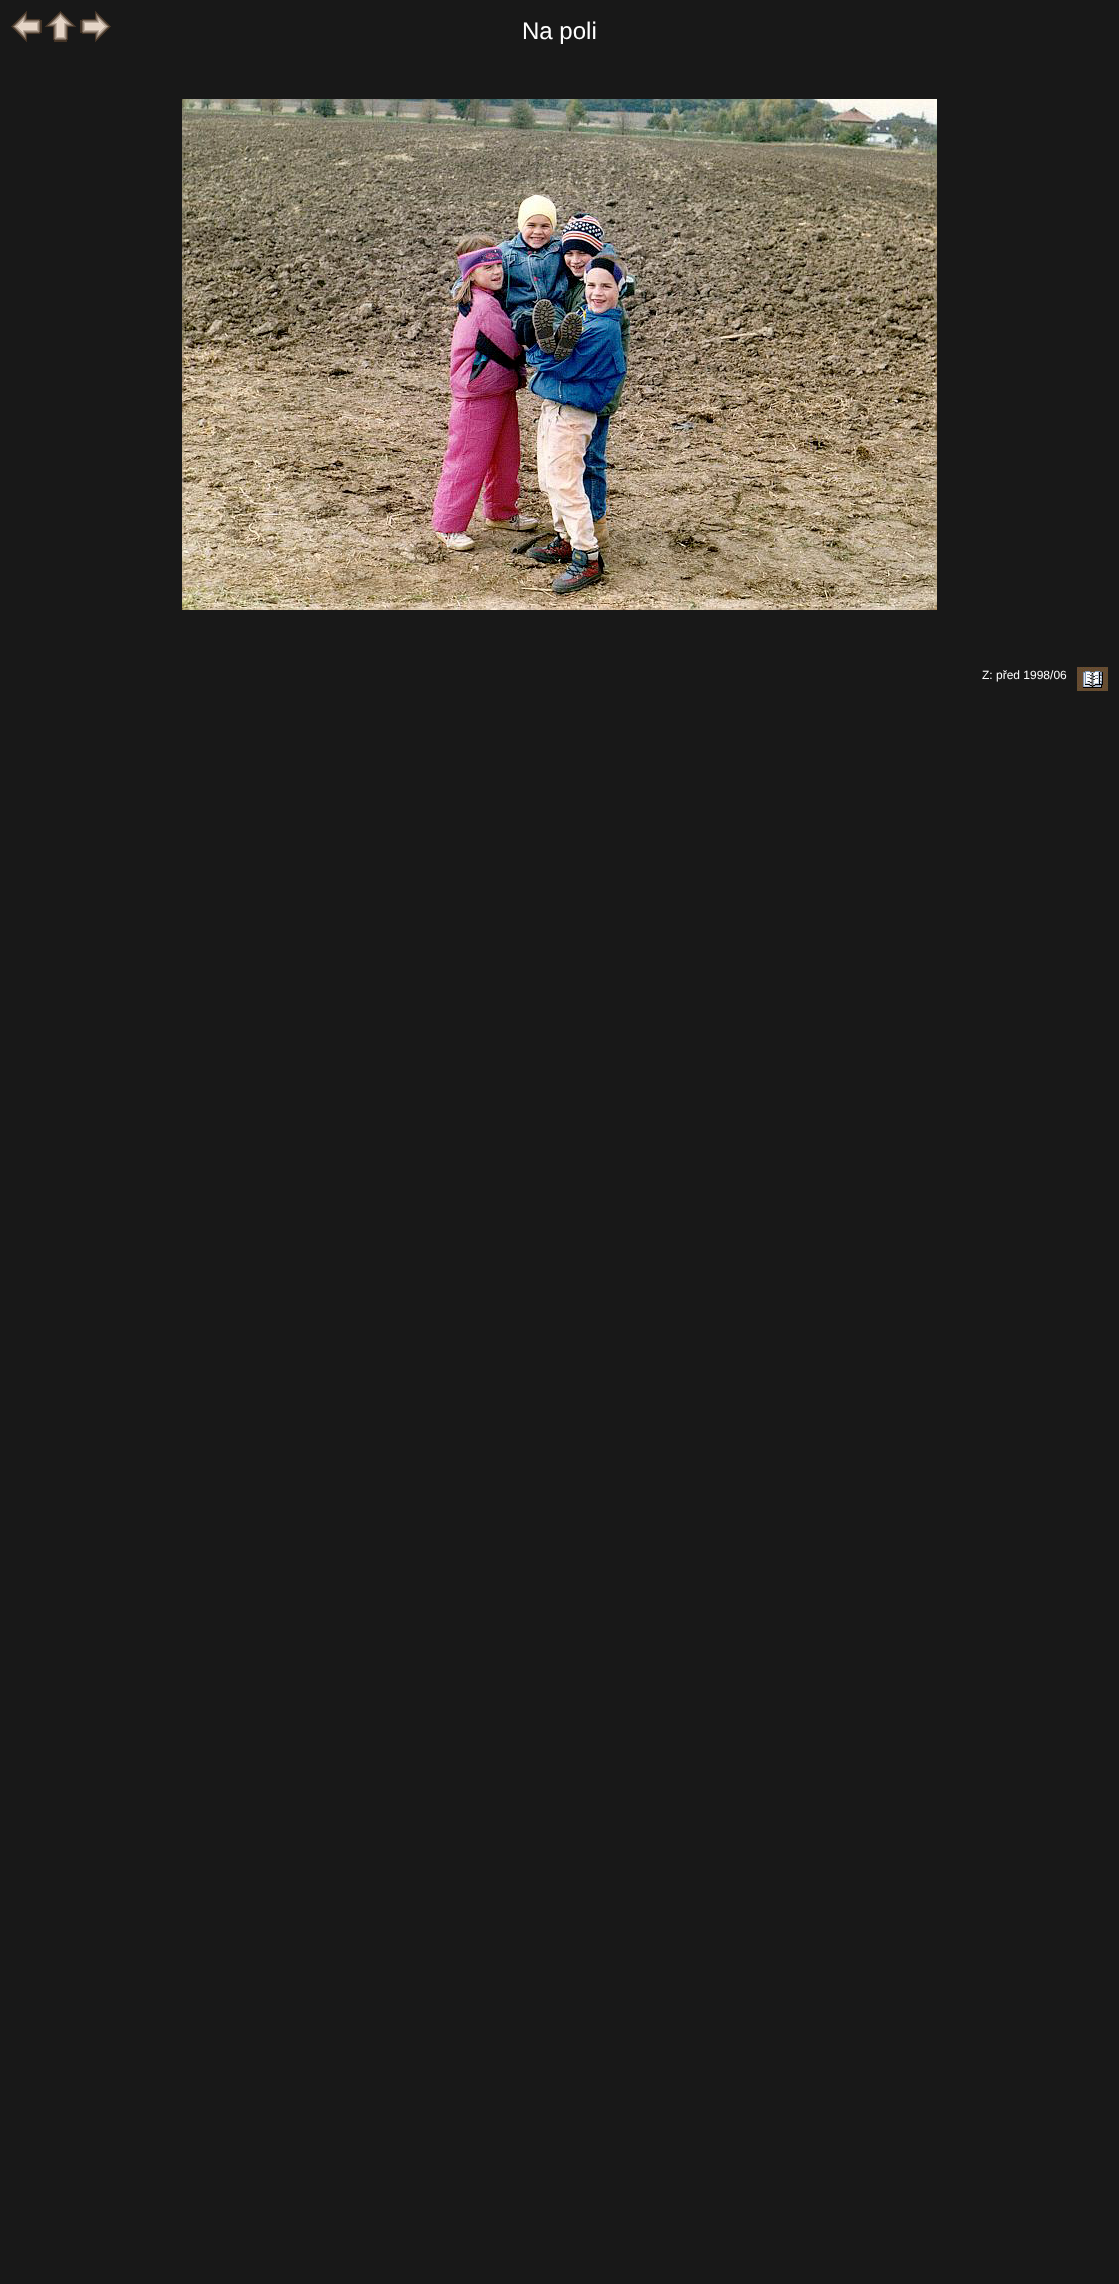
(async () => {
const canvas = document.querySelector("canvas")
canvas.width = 1119
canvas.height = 2284
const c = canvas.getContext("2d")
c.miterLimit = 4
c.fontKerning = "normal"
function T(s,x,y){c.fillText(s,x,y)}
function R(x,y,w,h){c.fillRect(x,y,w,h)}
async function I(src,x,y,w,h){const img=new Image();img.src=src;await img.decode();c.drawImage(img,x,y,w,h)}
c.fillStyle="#181818"
R(0,0,1119,2284)
await I("1.png",11,11,31,31)
await I("2.png",45,11,31,31)
await I("3.png",80,11,31,31)
c.font="24px Liberation Sans"
c.fillStyle="#fff"
T("Na poli",522,39)
await I("4.png",182,99,755,511)
c.font="12px Liberation Sans"
T("Z: před 1998/06",982,679)
await I("5.png",1077,667,31,24)
})()
